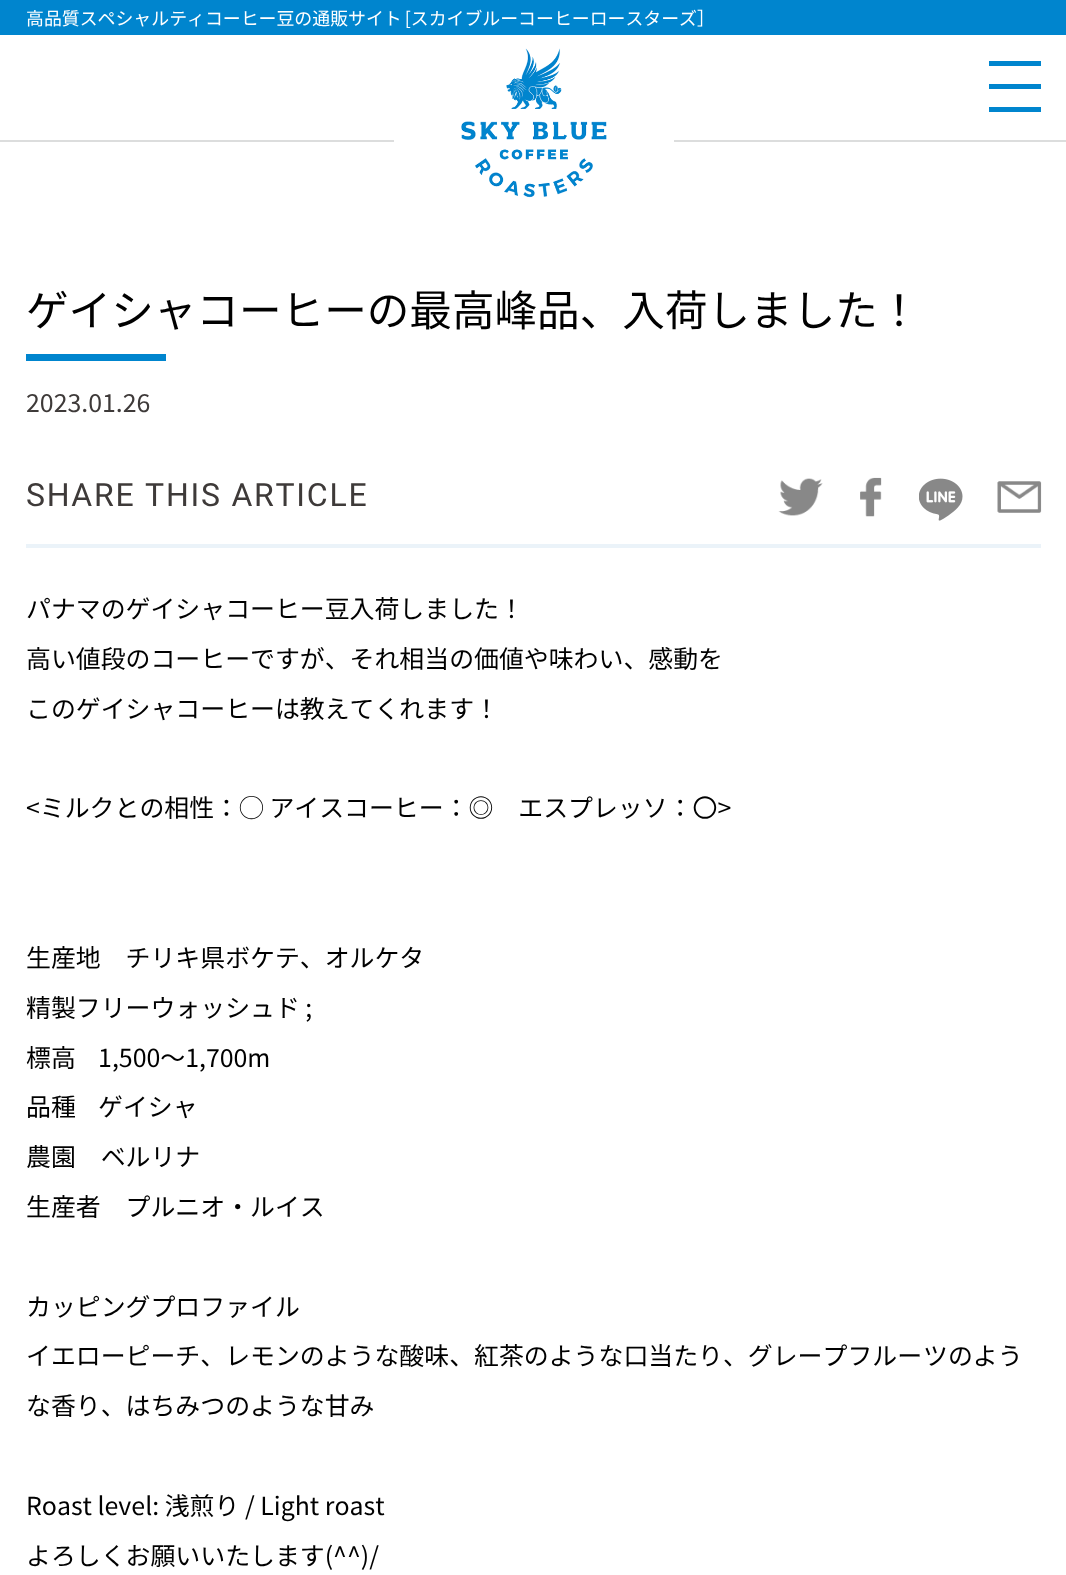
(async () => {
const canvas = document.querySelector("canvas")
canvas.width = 1066
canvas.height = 1575
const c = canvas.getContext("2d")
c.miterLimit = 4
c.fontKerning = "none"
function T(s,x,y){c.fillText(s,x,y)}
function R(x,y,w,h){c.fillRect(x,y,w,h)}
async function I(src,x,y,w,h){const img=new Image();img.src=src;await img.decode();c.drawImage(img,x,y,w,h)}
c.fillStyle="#fff"
R(0,0,1066,1575)
c.fillStyle="#dcdddd"
R(0,140,1066,2)
c.fillStyle="#0085ce"
R(0,0,1066,35)
c.wordSpacing="-1px"
c.font="17.9px Noto Sans JP"
c.fillStyle="#fff"
T("高品質スペシャルティコーヒー豆の通販サイト [スカイブルーコーヒーロースターズ］",26,25)
R(394,140,280,2)
await I("1.png",461,48,146,150)
c.fillStyle="#0085ce"
R(989,61,52,5)
R(989,84,52,5)
R(989,107,52,5)
c.wordSpacing="0px"
c.font="42.6px Noto Sans JP"
c.fillStyle="#000"
T("ゲイシャコーヒーの最高峰品、入荷しました！",26,326)
c.fillStyle="#0085ce"
R(26,354,140,7)
c.font="24.9px Noto Sans JP"
c.fillStyle="#3e3a39"
T("2023.01.26",26,412)
c.fillStyle="#ebf3f9"
R(26,544,1015,4)
c.letterSpacing="1.75px"
c.font="32px Heebo"
c.fillStyle="#3e3a39"
T("SHARE THIS ARTICLE",26,506)
await I("2.png",778,478,45,38)
await I("3.png",860,477,22,40)
await I("4.png",919,478,44,43)
await I("5.png",997,481,45,32)
c.letterSpacing="0px"
c.font="24.9px Noto Sans JP"
c.fillStyle="#000"
T("パナマのゲイシャコーヒー豆入荷しました！",26,618)
T("高い値段のコーヒーですが、それ相当の価値や味わい、感動を",26,668)
T("このゲイシャコーヒーは教えてくれます！",26,718)
T("<ミルクとの相性：◯ アイスコーヒー：◎　エスプレッソ：〇>",26,817)
T("生産地　チリキ県ボケテ、オルケタ",26,967)
T("精製フリーウォッシュド ;",26,1017)
T("標高    1,500～1,700m",26,1067)
T("品種    ゲイシャ",26,1116)
T("農園　ベルリナ",26,1166)
T("生産者　プルニオ・ルイス",26,1216)
T("カッピングプロファイル",26,1316)
T("イエローピーチ、レモンのような酸味、紅茶のような口当たり、グレープフルー",26,1365)
T("ツのよう",923,1365)
T("な香り、はちみつのような甘み",26,1415)
T("Roast level: 浅煎り / Light roast",26,1515)
T("よろしくお願いいたします(^^)/",26,1565)
})()
